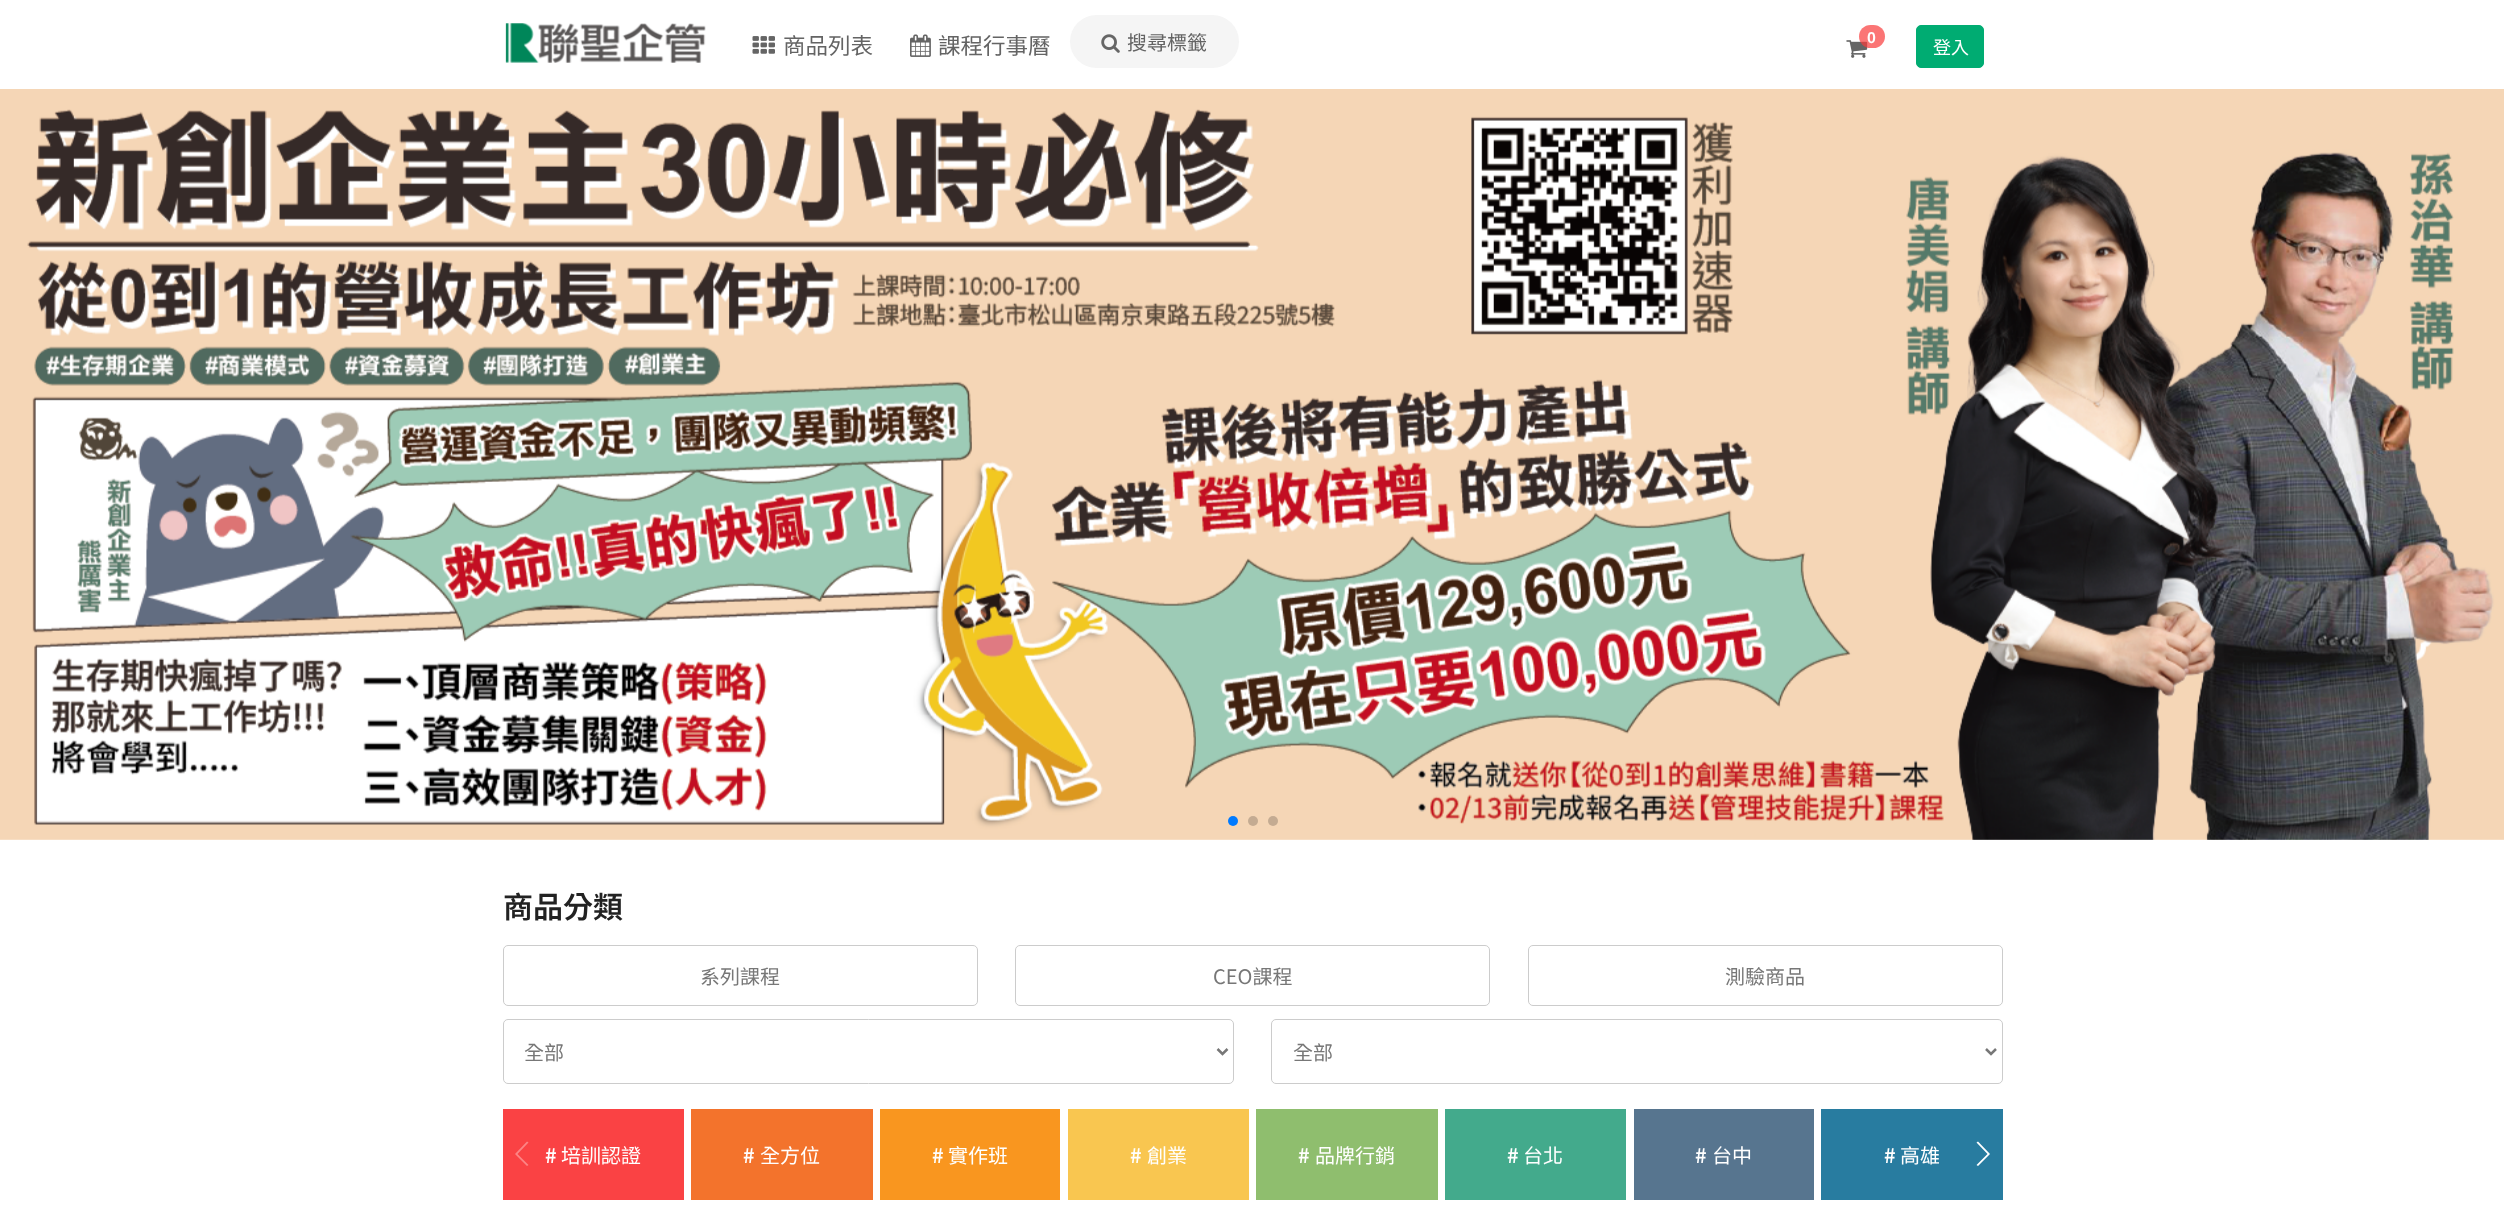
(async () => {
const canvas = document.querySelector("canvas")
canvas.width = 2504
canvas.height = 1226
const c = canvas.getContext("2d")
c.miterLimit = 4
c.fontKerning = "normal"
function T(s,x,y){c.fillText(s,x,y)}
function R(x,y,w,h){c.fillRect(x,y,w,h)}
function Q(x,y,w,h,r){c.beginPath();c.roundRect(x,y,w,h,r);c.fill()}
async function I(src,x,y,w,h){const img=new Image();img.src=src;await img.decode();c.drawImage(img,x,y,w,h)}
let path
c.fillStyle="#fff"
R(0,0,2504,1226)
await I("1.png",505,23,201,40)
await I("2.png",752,36,23,18)
c.font="22.5px Noto Sans TC"
c.fillStyle="#646464"
T("商品列表",783,54)
await I("3.png",910,34,21,23)
T("課程行事曆",938,54)
c.fillStyle="#f5f5f5"
Q(1070,15,169,53,26.5)
await I("4.png",1101,34,19,19)
c.font="20px Noto Sans TC"
c.fillStyle="#646464"
T("搜尋標籤",1127,50)
await I("5.png",1846,40,22,18)
c.fillStyle="#fa3a3ab3"
Q(1859,25,26,23,11.5)
c.font="bold 15px Noto Sans TC"
c.fillStyle="#fff"
T("0",1867,43)
c.fillStyle="#00ac72"
c.beginPath()
c.roundRect(1916.5,25.5,67,42,4.5)
c.fill()
c.strokeStyle="#00ac72"
c.stroke()
c.font="18px Noto Sans TC"
c.fillStyle="#fff"
T("登入",1933,54)
await I("6.png",0,89,2504,751)
c.fillStyle="#007aff"
c.beginPath()
c.arc(1233,821,5,0,7)
c.fill()
c.fillStyle="#c4ab92"
c.beginPath()
c.arc(1253,821,5,0,7)
c.fill()
c.beginPath()
c.arc(1273,821,5,0,7)
c.fill()
c.font="600 30px Noto Sans TC"
c.fillStyle="#222"
T("商品分類",503,918)
c.beginPath()
c.roundRect(503.5,945.5,474,60,4.5)
c.strokeStyle="#ccc"
c.stroke()
c.font="20px Noto Sans TC"
c.fillStyle="#777"
T("系列課程",700,984)
c.beginPath()
c.roundRect(1015.5,945.5,474,60,4.5)
c.stroke()
T("CEO課程",1213,984)
c.beginPath()
c.roundRect(1528.5,945.5,474,60,4.5)
c.stroke()
T("測驗商品",1725,984)
c.beginPath()
c.roundRect(503.5,1019.5,730,64,4.5)
c.stroke()
path = new Path2D("M1217.5 1049l5 5l5-5")
c.strokeStyle="#777"
c.lineWidth=2.5
c.stroke(path)
T("全部",524,1060)
c.beginPath()
c.roundRect(1271.5,1019.5,731,64,4.5)
c.strokeStyle="#ccc"
c.lineWidth=1
c.stroke()
path = new Path2D("M1986 1049l5 5l5-5")
c.strokeStyle="#777"
c.lineWidth=2.5
c.stroke(path)
T("全部",1293,1060)
c.fillStyle="#fa4244"
R(503,1109,181,91)
c.fillStyle="#fc8485"
path = new Path2D("M515 1154l12-12.5l1.5 1l-11 11.5l11 11l-1.5 1z")
c.fill(path)
c.font="600 20px Noto Sans TC"
c.fillStyle="#fff"
T("#",545,1163)
c.font="20px Noto Sans TC"
T("培訓認證",561,1163)
c.fillStyle="#f3732c"
R(691,1109,182,91)
c.font="600 20px Noto Sans TC"
c.fillStyle="#fff"
T("#",743,1163)
c.font="20px Noto Sans TC"
T("全方位",760,1163)
c.fillStyle="#f9961f"
R(880,1109,180,91)
c.font="600 20px Noto Sans TC"
c.fillStyle="#fff"
T("#",932,1163)
c.font="20px Noto Sans TC"
T("實作班",948,1163)
c.fillStyle="#f9c650"
R(1068,1109,181,91)
c.font="600 20px Noto Sans TC"
c.fillStyle="#fff"
T("#",1130,1163)
c.font="20px Noto Sans TC"
T("創業",1147,1163)
c.fillStyle="#8fbe6e"
R(1256,1109,182,91)
c.font="600 20px Noto Sans TC"
c.fillStyle="#fff"
T("#",1298,1163)
c.font="20px Noto Sans TC"
T("品牌行銷",1315,1163)
c.fillStyle="#43aa8c"
R(1445,1109,181,91)
c.font="600 20px Noto Sans TC"
c.fillStyle="#fff"
T("#",1507,1163)
c.font="20px Noto Sans TC"
T("台北",1523,1163)
c.fillStyle="#57758f"
R(1634,1109,180,91)
c.font="600 20px Noto Sans TC"
c.fillStyle="#fff"
T("#",1695,1163)
c.font="20px Noto Sans TC"
T("台中",1712,1163)
c.fillStyle="#287ca0"
R(1821,1109,182,91)
c.font="600 20px Noto Sans TC"
c.fillStyle="#fff"
T("#",1884,1163)
c.font="20px Noto Sans TC"
T("高雄",1900,1163)
path = new Path2D("M1990 1154l-12 12l-1.5-1l11-11l-11-11.5l1.5-1z")
c.fill(path)
})()
